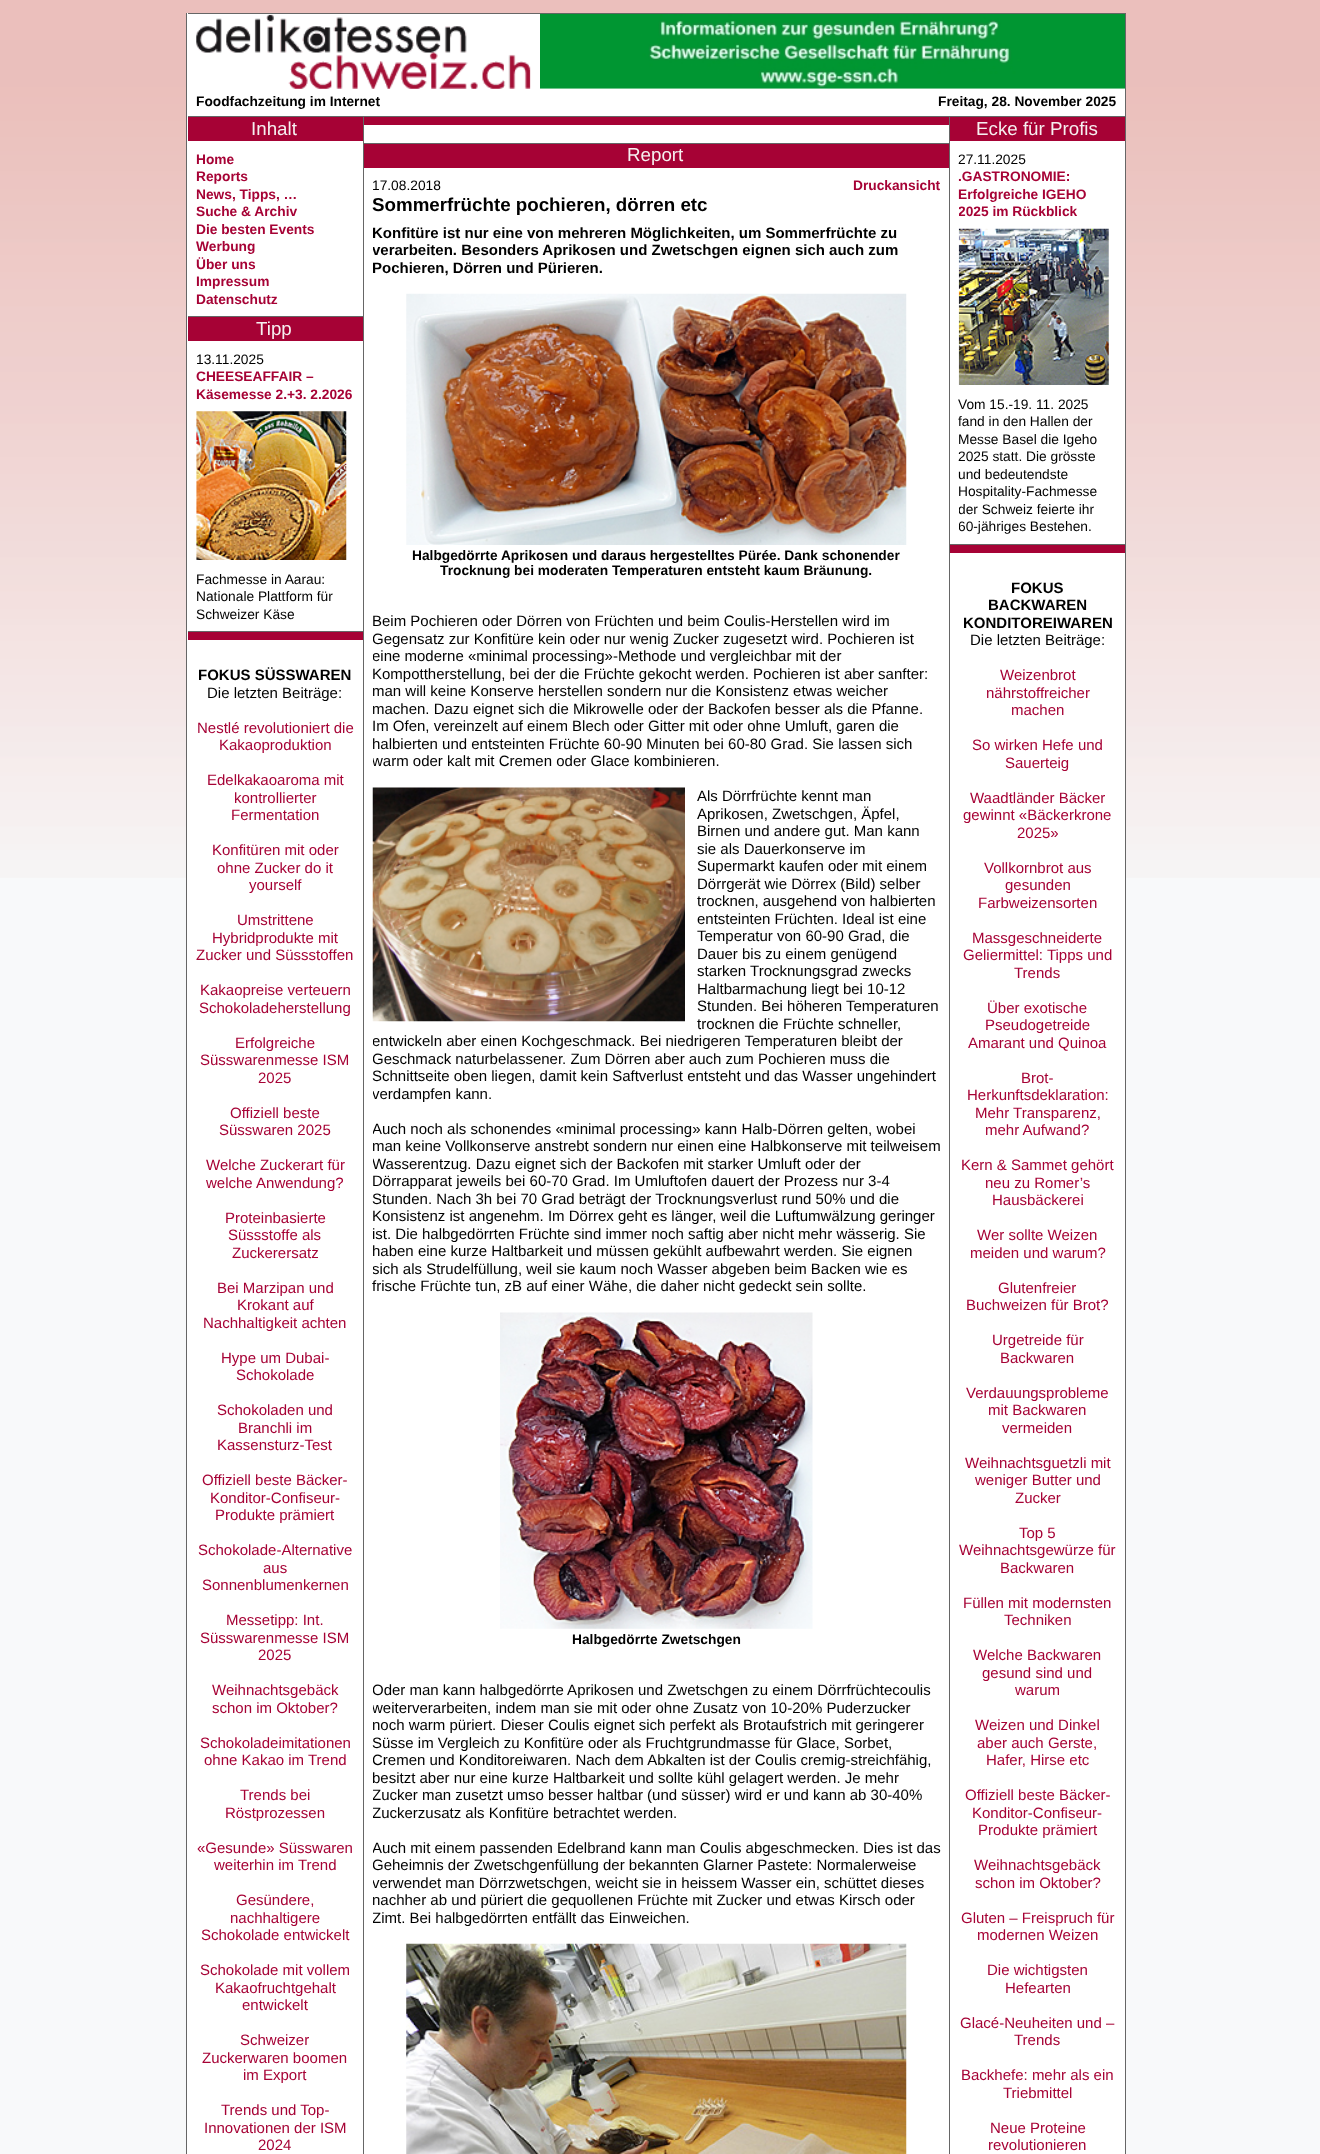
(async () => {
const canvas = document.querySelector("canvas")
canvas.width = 1320
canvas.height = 2154
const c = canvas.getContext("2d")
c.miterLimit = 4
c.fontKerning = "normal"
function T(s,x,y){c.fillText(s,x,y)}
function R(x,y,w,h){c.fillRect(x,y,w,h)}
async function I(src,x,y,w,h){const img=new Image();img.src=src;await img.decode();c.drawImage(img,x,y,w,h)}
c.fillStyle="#f8f9fa"
R(0,0,1320,2154)
await I("1.png",0,0,1320,878)
c.fillStyle="#fff"
R(187,13,938,2141)
c.fillStyle="#666"
R(1125,13,1,2141)
R(186,13,1,2141)
R(188,13,937,1)
await I("2.png",196,14,335,75)
await I("3.png",540,13,585,76)
c.font="bold 13.75px Liberation Sans"
c.fillStyle="#000"
T("Foodfachzeitung im Internet",196,106)
T("Freitag, 28. November 2025",938,106)
c.fillStyle="#666"
R(363,116,1,2038)
c.fillStyle="#a60235"
R(188,117,175,24)
c.fillStyle="#666"
R(188,116,175,1)
c.font="18.75px Liberation Sans"
c.fillStyle="#f6f0f0"
T("Inhalt",251,135)
c.font="bold 13.75px Liberation Sans"
c.fillStyle="#a60235"
T("Home",196,164)
T("Reports",196,181)
T("News, Tipps, …",196,199)
T("Suche & Archiv",196,216)
T("Die besten Events",196,234)
T("Werbung",196,251)
T("Über uns",196,269)
T("Impressum",196,286)
T("Datenschutz",196,304)
R(188,317,175,24)
c.fillStyle="#666"
R(188,316,175,1)
c.font="18.75px Liberation Sans"
c.fillStyle="#f6f0f0"
T("Tipp",256,335)
c.font="13.75px Liberation Sans"
c.fillStyle="#000"
T("13.11.2025",196,364)
c.font="bold 13.75px Liberation Sans"
c.fillStyle="#a60235"
T("CHEESEAFFAIR –",196,381)
T("Käsemesse 2.+3. 2.2026",196,399)
await I("4.png",196,411,151,149)
c.font="13.75px Liberation Sans"
c.fillStyle="#000"
T("Fachmesse in Aarau:",196,584)
T("Nationale Plattform für",196,601)
T("Schweizer Käse",196,619)
c.fillStyle="#a60235"
R(188,632,175,8)
c.fillStyle="#666"
R(188,631,175,1)
c.font="bold 15px Liberation Sans"
c.fillStyle="#000"
T("FOKUS SÜSSWAREN",198,680)
c.font="15px Liberation Sans"
T("Die letzten Beiträge:",207,698)
c.fillStyle="#a60235"
T("Nestlé revolutioniert die",197,733)
T("Kakaoproduktion",219,750)
T("Edelkakaoaroma mit",207,785)
T("kontrollierter",234,803)
T("Fermentation",231,820)
T("Konfitüren mit oder",212,855)
T("ohne Zucker do it",217,873)
T("yourself",249,890)
T("Umstrittene",237,925)
T("Hybridprodukte mit",212,943)
T("Zucker und Süssstoffen",196,960)
T("Kakaopreise verteuern",200,995)
T("Schokoladeherstellung",199,1013)
T("Erfolgreiche",235,1048)
T("Süsswarenmesse ISM",200,1065)
T("2025",258,1083)
T("Offiziell beste",230,1118)
T("Süsswaren 2025",219,1135)
T("Welche Zuckerart für",206,1170)
T("welche Anwendung?",206,1188)
T("Proteinbasierte",225,1223)
T("Süssstoffe als",228,1240)
T("Zuckerersatz",232,1258)
T("Bei Marzipan und",217,1293)
T("Krokant auf",237,1310)
T("Nachhaltigkeit achten",203,1328)
T("Hype um Dubai-",221,1363)
T("Schokolade",236,1380)
T("Schokoladen und",217,1415)
T("Branchli im",238,1433)
T("Kassensturz-Test",217,1450)
T("Offiziell beste Bäcker-",202,1485)
T("Konditor-Confiseur-",210,1503)
T("Produkte prämiert",215,1520)
T("Schokolade-Alternative",198,1555)
T("aus",263,1573)
T("Sonnenblumenkernen",202,1590)
T("Messetipp: Int.",226,1625)
T("Süsswarenmesse ISM",200,1643)
T("2025",258,1660)
T("Weihnachtsgebäck",212,1695)
T("schon im Oktober?",212,1713)
T("Schokoladeimitationen",200,1748)
T("ohne Kakao im Trend",204,1765)
T("Trends bei",240,1800)
T("Röstprozessen",225,1818)
T("«Gesunde» Süsswaren",197,1853)
T("weiterhin im Trend",214,1870)
T("Gesündere,",236,1905)
T("nachhaltigere",230,1923)
T("Schokolade entwickelt",201,1940)
T("Schokolade mit vollem",200,1975)
T("Kakaofruchtgehalt",215,1993)
T("entwickelt",242,2010)
T("Schweizer",240,2045)
T("Zuckerwaren boomen",202,2063)
T("im Export",243,2080)
T("Trends und Top-",221,2115)
T("Innovationen der ISM",204,2133)
T("2024",258,2150)
R(364,117,585,8)
c.fillStyle="#666"
R(364,116,585,1)
c.fillStyle="#a60235"
R(364,144,585,24)
c.fillStyle="#666"
R(364,143,585,1)
c.font="18.75px Liberation Sans"
c.fillStyle="#f6f0f0"
T("Report",627,161)
c.font="13.75px Liberation Sans"
c.fillStyle="#000"
T("17.08.2018",372,190)
c.font="bold 13.75px Liberation Sans"
c.fillStyle="#a60235"
T("Druckansicht",853,190)
c.font="bold 18.75px Liberation Sans"
c.fillStyle="#000"
T("Sommerfrüchte pochieren, dörren etc",372,211)
c.save()
c.beginPath()
c.rect(373,176,568,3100)
c.clip()
c.font="bold 15px Liberation Sans"
T("Konfitüre ist nur eine von mehreren Möglichkeiten, um Sommerfrüchte zu",372,238)
T("verarbeiten. Besonders Aprikosen und Zwetschgen eignen sich auch zum",372,255)
T("Pochieren, Dörren und Pürieren.",372,273)
c.restore()
await I("5.png",406,293,501,252)
c.font="bold 13.75px Liberation Sans"
T("Halbgedörrte Aprikosen und daraus hergestelltes Pürée. Dank schonender",412,560)
T("Trocknung bei moderaten Temperaturen entsteht kaum Bräunung.",440,575)
c.font="15px Liberation Sans"
T("Beim Pochieren oder Dörren von Früchten und beim Coulis-Herstellen wird im",372,626)
c.save()
c.beginPath()
c.rect(373,176,568,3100)
c.clip()
T("Gegensatz zur Konfitüre kein oder nur wenig Zucker zugesetzt wird. Pochieren ist",372,644)
T("eine moderne «minimal processing»-Methode und vergleichbar mit der",372,661)
c.restore()
T("Kompottherstellung, bei der die Früchte gekocht werden. Pochieren ist aber sanfter:",372,679)
c.save()
c.beginPath()
c.rect(373,176,568,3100)
c.clip()
T("man will keine Konserve herstellen sondern nur die Konsistenz etwas weicher",372,696)
T("machen. Dazu eignet sich die Mikrowelle oder der Backofen besser als die Pfanne.",372,714)
c.restore()
T("Im Ofen, vereinzelt auf einem Blech oder Gitter mit oder ohne Umluft, garen die",372,731)
c.save()
c.beginPath()
c.rect(373,176,568,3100)
c.clip()
T("halbierten und entsteinten Früchte 60-90 Minuten bei 60-80 Grad. Sie lassen sich",372,749)
T("warm oder kalt mit Cremen oder Glace kombinieren.",372,766)
c.restore()
await I("6.png",372,787,313,235)
T("Als Dörrfrüchte kennt man",697,801)
T("Aprikosen, Zwetschgen, Äpfel,",697,819)
T("Birnen und andere gut. Man kann",697,836)
T("sie als Dauerkonserve im",697,854)
T("Supermarkt kaufen oder mit einem",697,871)
T("Dörrgerät wie Dörrex (Bild) selber",697,889)
T("trocknen, ausgehend von halbierten",697,906)
T("entsteinten Früchten. Ideal ist eine",697,924)
T("Temperatur von 60-90 Grad, die",697,941)
T("Dauer bis zu einem genügend",697,959)
T("starken Trocknungsgrad zwecks",697,976)
T("Haltbarmachung liegt bei 10-12",697,994)
T("Stunden. Bei höheren Temperaturen",697,1011)
T("trocknen die Früchte schneller,",697,1029)
c.save()
c.beginPath()
c.rect(373,176,568,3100)
c.clip()
T("entwickeln aber einen Kochgeschmack. Bei niedrigeren Temperaturen bleibt der",372,1046)
T("Geschmack naturbelassener. Zum Dörren aber auch zum Pochieren muss die",372,1064)
c.restore()
T("Schnittseite oben liegen, damit kein Saftverlust entsteht und das Wasser ungehindert",372,1081)
c.save()
c.beginPath()
c.rect(373,176,568,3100)
c.clip()
T("verdampfen kann.",372,1099)
T("Auch noch als schonendes «minimal processing» kann Halb-Dörren gelten, wobei",372,1134)
T("man keine Vollkonserve anstrebt sondern nur einen eine Halbkonserve mit teilweisem",372,1151)
T("Wasserentzug. Dazu eignet sich der Backofen mit starker Umluft oder der",372,1169)
c.restore()
T("Dörrapparat jeweils bei 60-70 Grad. Im Umluftofen dauert der Prozess nur 3-4",372,1186)
T("Stunden. Nach 3h bei 70 Grad beträgt der Trocknungsverlust rund 50% und die",372,1204)
T("Konsistenz ist angenehm. Im Dörrex geht es länger, weil die Luftumwälzung geringer",372,1221)
c.save()
c.beginPath()
c.rect(373,176,568,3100)
c.clip()
T("ist. Die halbgedörrten Früchte sind immer noch saftig aber nicht mehr wässerig. Sie",372,1239)
T("haben eine kurze Haltbarkeit und müssen gekühlt aufbewahrt werden. Sie eignen",372,1256)
T("sich als Strudelfüllung, weil sie kaum noch Wasser abgeben beim Backen wie es",372,1274)
c.restore()
T("frische Früchte tun, zB auf einer Wähe, die daher nicht gedeckt sein sollte.",372,1291)
await I("7.png",500,1312,313,317)
c.font="bold 13.75px Liberation Sans"
T("Halbgedörrte Zwetschgen",572,1644)
c.save()
c.beginPath()
c.rect(373,176,568,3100)
c.clip()
c.font="15px Liberation Sans"
T("Oder man kann halbgedörrte Aprikosen und Zwetschgen zu einem Dörrfrüchtecoulis",372,1695)
T("weiterverarbeiten, indem man sie mit oder ohne Zusatz von 10-20% Puderzucker",372,1713)
T("noch warm püriert. Dieser Coulis eignet sich perfekt als Brotaufstrich mit geringerer",372,1730)
c.restore()
c.font="15px Liberation Sans"
T("Süsse im Vergleich zu Konfitüre oder als Fruchtgrundmasse für Glace, Sorbet,",372,1748)
c.save()
c.beginPath()
c.rect(373,176,568,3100)
c.clip()
T("Cremen und Konditoreiwaren. Nach dem Abkalten ist der Coulis cremig-streichfähig,",372,1765)
T("besitzt aber nur eine kurze Haltbarkeit und sollte kühl gelagert werden. Je mehr",372,1783)
T("Zucker man zusetzt umso besser haltbar (und süsser) wird er und kann ab 30-40%",372,1800)
T("Zuckerzusatz als Konfitüre betrachtet werden.",372,1818)
T("Auch mit einem passenden Edelbrand kann man Coulis abgeschmecken. Dies ist das",372,1853)
T("Geheimnis der Zwetschgenfüllung der bekannten Glarner Pastete: Normalerweise",372,1870)
T("verwendet man Dörrzwetschgen, weicht sie in heissem Wasser ein, schüttet dieses",372,1888)
T("nachher ab und püriert die gequollenen Früchte mit Zucker und etwas Kirsch oder",372,1905)
T("Zimt. Bei halbgedörrten entfällt das Einweichen.",372,1923)
c.restore()
await I("8.png",406,1943,501,211)
c.fillStyle="#666"
R(949,116,1,2038)
c.fillStyle="#a60235"
R(950,117,175,24)
c.fillStyle="#666"
R(950,116,175,1)
c.font="18.75px Liberation Sans"
c.fillStyle="#f6f0f0"
T("Ecke für Profis",976,135)
c.font="13.75px Liberation Sans"
c.fillStyle="#000"
T("27.11.2025",958,164)
c.font="bold 13.75px Liberation Sans"
c.fillStyle="#a60235"
T(".GASTRONOMIE:",958,181)
T("Erfolgreiche IGEHO",958,199)
c.save()
c.beginPath()
c.rect(959,150,159,385)
c.clip()
T("2025 im Rückblick",958,216)
c.restore()
await I("9.png",958,228,151,157)
c.font="13.75px Liberation Sans"
c.fillStyle="#000"
T("Vom 15.-19. 11. 2025",958,409)
T("fand in den Hallen der",958,426)
T("Messe Basel die Igeho",958,444)
T("2025 statt. Die grösste",958,461)
T("und bedeutendste",958,479)
T("Hospitality-Fachmesse",958,496)
c.save()
c.beginPath()
c.rect(959,150,159,385)
c.clip()
T("der Schweiz feierte ihr",958,514)
T("60-jähriges Bestehen.",958,531)
c.restore()
c.fillStyle="#a60235"
R(950,545,175,8)
c.fillStyle="#666"
R(950,544,175,1)
c.font="bold 15px Liberation Sans"
c.fillStyle="#000"
T("FOKUS",1011,593)
T("BACKWAREN",988,610)
T("KONDITOREIWAREN",963,628)
c.font="15px Liberation Sans"
T("Die letzten Beiträge:",970,645)
c.fillStyle="#a60235"
T("Weizenbrot",1000,680)
T("nährstoffreicher",986,698)
T("machen",1011,715)
T("So wirken Hefe und",972,750)
T("Sauerteig",1005,768)
T("Waadtländer Bäcker",970,803)
T("gewinnt «Bäckerkrone",963,820)
T("2025»",1017,838)
T("Vollkornbrot aus",984,873)
T("gesunden",1005,890)
T("Farbweizensorten",978,908)
T("Massgeschneiderte",972,943)
T("Geliermittel: Tipps und",963,960)
T("Trends",1014,978)
T("Über exotische",987,1013)
T("Pseudogetreide",985,1030)
T("Amarant und Quinoa",968,1048)
T("Brot-",1021,1083)
T("Herkunftsdeklaration:",967,1100)
T("Mehr Transparenz,",975,1118)
T("mehr Aufwand?",985,1135)
T("Kern & Sammet gehört",961,1170)
T("neu zu Romer’s",985,1188)
T("Hausbäckerei",992,1205)
T("Wer sollte Weizen",977,1240)
T("meiden und warum?",970,1258)
T("Glutenfreier",998,1293)
T("Buchweizen für Brot?",966,1310)
T("Urgetreide für",992,1345)
T("Backwaren",1000,1363)
T("Verdauungsprobleme",966,1398)
T("mit Backwaren",988,1415)
T("vermeiden",1002,1433)
T("Weihnachtsguetzli mit",965,1468)
T("weniger Butter und",975,1485)
T("Zucker",1015,1503)
T("Top 5",1019,1538)
T("Weihnachtsgewürze für",959,1555)
T("Backwaren",1000,1573)
T("Füllen mit modernsten",963,1608)
T("Techniken",1004,1625)
T("Welche Backwaren",973,1660)
T("gesund sind und",982,1678)
T("warum",1015,1695)
T("Weizen und Dinkel",975,1730)
T("aber auch Gerste,",977,1748)
T("Hafer, Hirse etc",986,1765)
T("Offiziell beste Bäcker-",965,1800)
T("Konditor-Confiseur-",972,1818)
T("Produkte prämiert",978,1835)
T("Weihnachtsgebäck",974,1870)
T("schon im Oktober?",975,1888)
T("Gluten – Freispruch für",961,1923)
T("modernen Weizen",977,1940)
T("Die wichtigsten",987,1975)
T("Hefearten",1005,1993)
T("Glacé-Neuheiten und –",960,2028)
T("Trends",1014,2045)
T("Backhefe: mehr als ein",961,2080)
T("Triebmittel",1003,2098)
T("Neue Proteine",990,2133)
T("revolutionieren",988,2150)
})()
